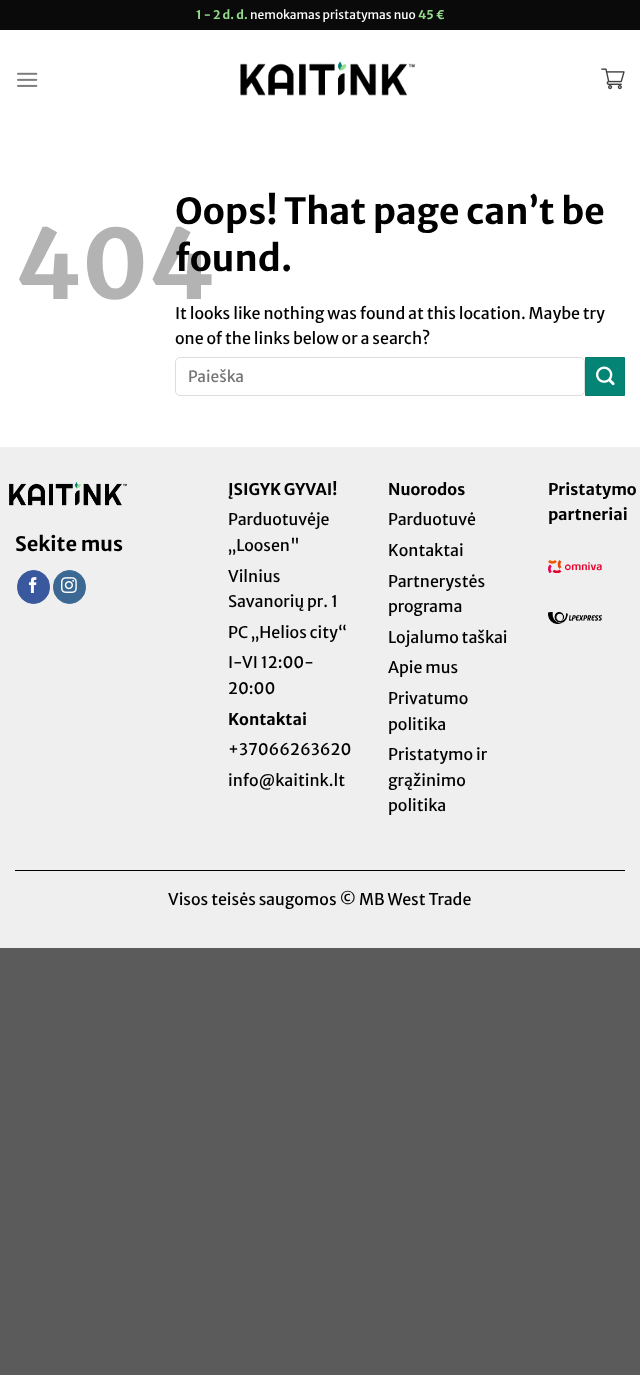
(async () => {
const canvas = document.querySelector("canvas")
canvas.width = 640
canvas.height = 1375
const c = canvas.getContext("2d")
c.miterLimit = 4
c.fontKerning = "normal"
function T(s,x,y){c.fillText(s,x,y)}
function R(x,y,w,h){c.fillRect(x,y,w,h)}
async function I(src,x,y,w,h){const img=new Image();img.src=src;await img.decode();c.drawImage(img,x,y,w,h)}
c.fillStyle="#5b5b5b"
R(0,0,640,1375)
c.fillStyle="#fff"
R(0,30,640,417)
c.fillStyle="#0a0a0a"
R(0,0,640,30)
c.font="bold 12px Merriweather Sans"
c.fillStyle="#93db8b"
T("1 - 2 d. d.",196,19)
c.font="12px Merriweather Sans"
c.fillStyle="#fff"
T("nemokamas pristatymas nuo",250,19)
c.font="bold 12px Merriweather Sans"
c.fillStyle="#93db8b"
T("45 €",418,19)
await I("1.png",17,72,21,15)
await I("2.png",240,61,175,35)
await I("3.png",601,68,24,22)
c.font="bold 96px Merriweather Sans"
c.fillStyle="#b3b3b3"
T("404",15,299)
c.font="bold 36px Merriweather Sans"
c.fillStyle="#000"
T("Oops! That page can’t be",175,224)
T("found.",175,271)
c.font="16px Merriweather Sans"
T("It looks like nothing was found at this location. Maybe try",175,319)
T("one of the links below or a search?",175,344)
c.beginPath()
c.roundRect(175.5,357.5,409,38,4.5)
c.strokeStyle="#ddd"
c.stroke()
c.font="15.5px Merriweather Sans"
c.fillStyle="#757575"
T("Paieška",188,382)
c.fillStyle="#048474"
c.beginPath()
c.rect(585.5,357.5,39,38)
c.fill()
c.strokeStyle="#047d6e"
c.stroke()
await I("4.png",596,366,19,20)
c.fillStyle="#efefef"
R(0,447,640,501)
c.font="bold 16px Merriweather Sans"
c.fillStyle="#000"
T("ĮSIGYK GYVAI!",228,495)
c.font="16px Merriweather Sans"
T("Parduotuvėje",228,525)
T("„Loosen\"",228,551)
T("Vilnius",228,582)
T("Savanorių pr. 1",228,607)
T("PC „Helios city“",228,638)
T("I-VI 12:00-",228,668)
T("20:00",228,694)
c.font="bold 16px Merriweather Sans"
T("Kontaktai",228,725)
c.font="16px Merriweather Sans"
T("+37066263620",228,755)
T("info@kaitink.lt",228,786)
c.font="bold 16px Merriweather Sans"
T("Nuorodos",388,495)
c.font="16px Merriweather Sans"
T("Parduotuvė",388,525)
T("Kontaktai",388,556)
T("Partnerystės",388,587)
T("programa",388,612)
T("Lojalumo taškai",388,643)
T("Apie mus",388,673)
T("Privatumo",388,704)
T("politika",388,730)
T("Pristatymo ir",388,760)
T("grąžinimo",388,786)
T("politika",388,811)
c.font="bold 16px Merriweather Sans"
T("Pristatymo",548,495)
T("partneriai",548,520)
await I("5.png",548,560,54,13)
await I("6.png",548,612,54,12)
await I("7.png",9,482,118,24)
c.font="bold 20px Merriweather Sans"
T("Sekite mus",15,551)
c.fillStyle="#3a589d"
c.beginPath()
c.roundRect(17.5,570.5,32,33,16)
c.fill()
c.strokeStyle="#3a589d"
c.stroke()
await I("8.png",28,577,9,16)
c.fillStyle="#3b6994"
c.beginPath()
c.roundRect(53.5,570.5,32,33,16)
c.fill()
c.strokeStyle="#3b6994"
c.stroke()
await I("9.png",61,577,16,16)
c.fillStyle="#000"
R(15,870,610,1)
c.font="16px Merriweather Sans"
T("Visos teisės saugomos © MB West Trade",168,905)
})()
